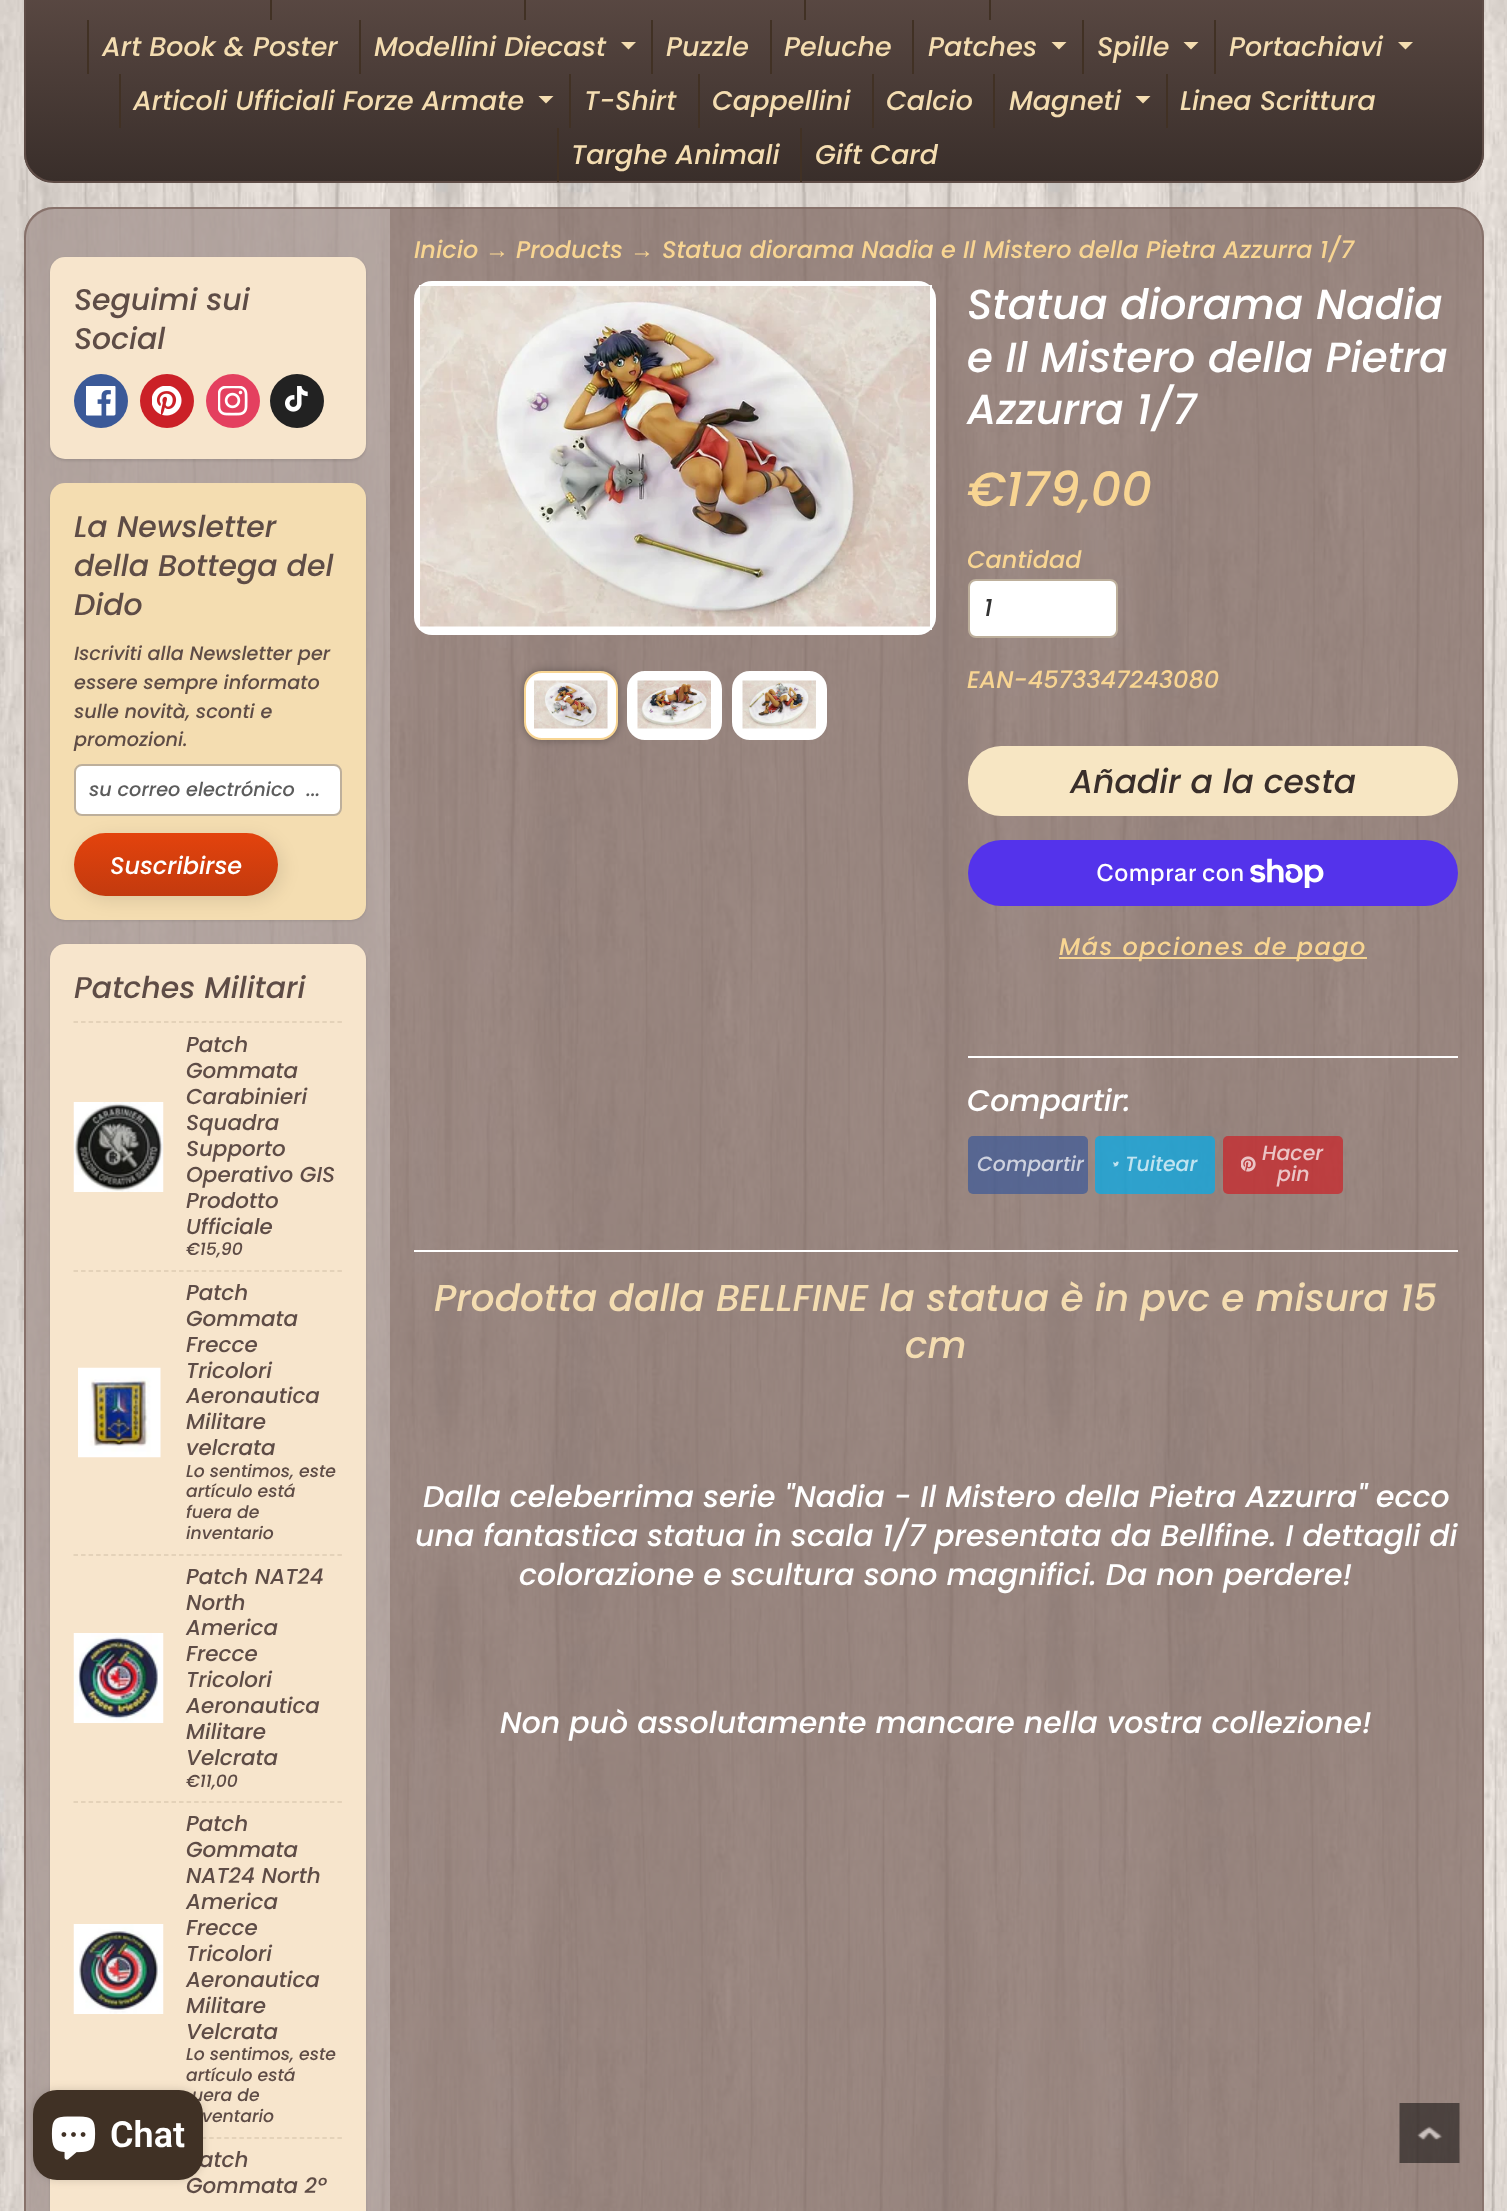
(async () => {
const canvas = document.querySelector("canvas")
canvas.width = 1507
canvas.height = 2211
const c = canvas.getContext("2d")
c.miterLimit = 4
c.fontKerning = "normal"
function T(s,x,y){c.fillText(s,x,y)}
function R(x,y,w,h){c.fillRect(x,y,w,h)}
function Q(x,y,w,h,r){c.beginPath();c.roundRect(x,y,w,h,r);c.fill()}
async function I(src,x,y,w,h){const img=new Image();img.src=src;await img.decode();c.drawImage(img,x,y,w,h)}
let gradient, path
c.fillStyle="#fff"
R(0,0,1507,2211)
await I("1.png",0,0,1507,2211)
c.save()
c.beginPath()
c.roundRect(24,-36,1460,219,30)
c.clip()
gradient = c.createLinearGradient(754,-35,754,182)
gradient.addColorStop(0,"#5e4c46")
gradient.addColorStop(1,"#392e2a")
c.fillStyle = gradient
R(24,0,1460,182)
c.restore()
c.beginPath()
c.roundRect(25,-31,1458,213,29)
c.strokeStyle="#5e4c46"
c.lineWidth=2
c.stroke()
c.fillStyle="#413124"
R(270,0,2,20)
R(524,0,2,20)
R(804,0,2,20)
R(989,0,2,20)
R(87,20,2,54)
c.font="italic 500 27px Poppins"
c.fillStyle="#f4ddb1"
T("Art Book & Poster",102,56)
c.fillStyle="#413124"
R(359,20,2,54)
c.fillStyle="#f4ddb1"
T("Modellini Diecast",374,56)
path = new Path2D("M621 42h15l-7.5 7.5z")
c.fill(path)
c.fillStyle="#413124"
R(651,20,2,54)
c.fillStyle="#f4ddb1"
T("Puzzle",666,56)
c.fillStyle="#413124"
R(770,20,2,54)
c.fillStyle="#f4ddb1"
T("Peluche",784,56)
c.fillStyle="#413124"
R(912,20,2,54)
c.fillStyle="#f4ddb1"
T("Patches",928,56)
path = new Path2D("M1051.5 42h15l-7.5 7.5z")
c.fill(path)
c.fillStyle="#413124"
R(1082,20,2,54)
c.fillStyle="#f4ddb1"
T("Spille",1097,56)
path = new Path2D("M1183.5 42h15l-7.5 7.5z")
c.fill(path)
c.fillStyle="#413124"
R(1214,20,2,54)
c.fillStyle="#f4ddb1"
T("Portachiavi",1229,56)
path = new Path2D("M1398 42h15l-7.5 7.5z")
c.fill(path)
c.fillStyle="#413124"
R(119,74,2,54)
c.fillStyle="#f4ddb1"
T("Articoli Ufficiali Forze Armate",133,110)
path = new Path2D("M538.5 96h15l-7.5 7.5z")
c.fill(path)
c.fillStyle="#413124"
R(569,74,2,54)
c.fillStyle="#f4ddb1"
T("T-Shirt",584,110)
c.fillStyle="#413124"
R(698,74,2,54)
c.fillStyle="#f4ddb1"
T("Cappellini",712,110)
c.fillStyle="#413124"
R(872,74,2,54)
c.fillStyle="#f4ddb1"
T("Calcio",886,110)
c.fillStyle="#413124"
R(993,74,2,54)
c.fillStyle="#f4ddb1"
T("Magneti",1009,110)
path = new Path2D("M1135.5 96h15l-7.5 7.5z")
c.fill(path)
c.fillStyle="#413124"
R(1166,74,2,54)
c.fillStyle="#f4ddb1"
T("Linea Scrittura",1180,110)
c.fillStyle="#413124"
R(557,128,2,54)
c.fillStyle="#f4ddb1"
T("Targhe Animali",571,164)
c.fillStyle="#413124"
R(800,128,2,54)
c.fillStyle="#f4ddb1"
T("Gift Card",815,164)
c.fillStyle="#806a63bf"
Q(24,207,1460,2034,30)
c.beginPath()
c.roundRect(25,208,1458,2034,29)
c.strokeStyle="#806a63b3"
c.stroke()
c.fillStyle="#ffffff40"
path = new Path2D("M55 209h335v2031h-335c-16 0-29-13-29-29v-1973c0-16 13-29 29-29z")
c.fill(path)
c.fillStyle="#0000001a"
c.filter="blur(1px)"
c.beginPath()
c.roundRect(50,258,316,203,15)
c.fill()
c.filter="none"
c.fillStyle="#f7e5cc"
Q(50,257,316,202,15)
c.font="italic 500 30px Poppins"
c.fillStyle="#5e4c46"
T("Seguimi sui",74,310)
T("Social",74,349)
c.fillStyle="#3b5998"
c.beginPath()
c.arc(101,401,27,0,7)
c.fill()
await I("2.png",86,386,30,30)
c.fillStyle="#cb2027"
c.beginPath()
c.arc(167,401,27,0,7)
c.fill()
await I("3.png",152,386,30,30)
c.fillStyle="#e4405f"
c.beginPath()
c.arc(233,401,27,0,7)
c.fill()
await I("4.png",218,386,30,30)
c.fillStyle="#222"
c.beginPath()
c.arc(297,401,27,0,7)
c.fill()
await I("5.png",285,386,23,26)
c.fillStyle="#0000001a"
c.filter="blur(1px)"
c.beginPath()
c.roundRect(50,485,316,436,15)
c.fill()
c.filter="none"
c.fillStyle="#f4ddb1"
Q(50,483,316,437,15)
c.fillStyle="#5e4c46"
T("La Newsletter",74,537)
T("della Bottega del",74,576)
T("Dido",74,615)
c.font="italic 500 19.25px Poppins"
T("Iscriviti alla Newsletter per",74,660)
T("essere sempre informato",74,689)
T("sulle novità, sconti e",74,718)
T("promozioni.",74,746)
c.fillStyle="#fff"
c.beginPath()
c.roundRect(75,765,266,50,7)
c.fill()
c.strokeStyle="#bdaf9b"
c.stroke()
c.fillStyle="#5c5c5c"
T("su correo electrónico  ...",89,796)
c.fillStyle="#0000001a"
c.filter="blur(9px)"
c.beginPath()
c.roundRect(78,837,204,63,31.5)
c.fill()
c.filter="none"
gradient = c.createLinearGradient(176,833,176,896)
gradient.addColorStop(0,"#e3430d")
gradient.addColorStop(1,"#c33a0e")
c.fillStyle = gradient
Q(74,833,204,63,31.5)
c.font="italic 500 24px Poppins"
c.fillStyle="#fff"
T("Suscribirse",110,874)
c.fillStyle="#0000001a"
c.filter="blur(1px)"
c.beginPath()
c.roundRect(50,945,316,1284,15)
c.fill()
c.filter="none"
c.fillStyle="#f7e5cc"
Q(50,944,316,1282,15)
c.font="italic 500 30px Poppins"
c.fillStyle="#5e4c46"
T("Patches Militari",74,998)
path = new Path2D("M73.5 1022h268.5")
c.strokeStyle="#deccb2"
c.lineWidth=1.5
c.setLineDash([4.5,3.04])
c.stroke(path)
await I("6.png",73,1102,91,90)
c.font="italic 500 21.5px Poppins"
T("Patch",186,1052)
T("Gommata",186,1078)
T("Carabinieri",186,1104)
T("Squadra",186,1130)
T("Supporto",186,1156)
T("Operativo GIS",186,1182)
T("Prodotto",186,1208)
T("Ufficiale",186,1234)
c.font="italic 500 17.25px Poppins"
T("€15,90",186,1255)
path = new Path2D("M73.5 1271h268.5")
c.stroke(path)
await I("7.png",78,1367,83,91)
c.font="italic 500 21.5px Poppins"
T("Patch",186,1300)
T("Gommata",186,1326)
T("Frecce",186,1352)
T("Tricolori",186,1378)
T("Aeronautica",186,1403)
T("Militare",186,1429)
T("velcrata",186,1455)
c.font="italic 500 17.25px Poppins"
T("Lo sentimos, este",186,1477)
T("artículo está",186,1497)
T("fuera de",186,1518)
T("inventario",186,1539)
path = new Path2D("M73.5 1555h268.5")
c.stroke(path)
await I("8.png",73,1633,91,90)
c.font="italic 500 21.5px Poppins"
T("Patch NAT24",186,1584)
T("North",186,1610)
T("America",186,1635)
T("Frecce",186,1661)
T("Tricolori",186,1687)
T("Aeronautica",186,1713)
T("Militare",186,1739)
T("Velcrata",186,1765)
c.font="italic 500 17.25px Poppins"
T("€11,00",186,1787)
path = new Path2D("M73.5 1802h268.5")
c.stroke(path)
await I("9.png",73,1924,91,90)
c.font="italic 500 21.5px Poppins"
T("Patch",186,1831)
T("Gommata",186,1857)
T("NAT24 North",186,1883)
T("America",186,1909)
T("Frecce",186,1935)
T("Tricolori",186,1961)
T("Aeronautica",186,1987)
T("Militare",186,2013)
T("Velcrata",186,2039)
c.font="italic 500 17.25px Poppins"
T("Lo sentimos, este",186,2060)
T("artículo está",186,2081)
T("uera de",192,2101)
T("ventario",202,2122)
path = new Path2D("M73.5 2138h268.5")
c.stroke(path)
c.font="italic 500 21.5px Poppins"
T("atch",199,2167)
T("Gommata 2º",186,2193)
c.font="italic 500 24px Poppins"
c.fillStyle="#f8d592"
T("Inicio",414,258)
c.font="italic 24px Liberation Sans"
T("→",485,258)
c.font="italic 500 24px Poppins"
T("Products",516,258)
c.font="italic 24px Liberation Sans"
T("→",630,258)
c.font="italic 500 24px Poppins"
T("Statua diorama Nadia e Il Mistero della Pietra Azzurra 1/7",662,258)
c.fillStyle="#fff"
Q(414,281,522,354,18)
R(419,285,513,345)
await I("10.png",420,286,510,341)
c.fillStyle="#0000004d"
c.filter="blur(4.5px)"
c.beginPath()
c.roundRect(524,671,94,69,18)
c.fill()
c.filter="none"
c.fillStyle="#fff"
c.beginPath()
c.roundRect(525,672,92,67,17)
c.fill()
c.strokeStyle="#f8d592"
c.lineWidth=2
c.setLineDash([])
c.stroke()
await I("11.png",534,680,74,49)
c.beginPath()
c.roundRect(628,672,93,67,17)
c.fill()
c.strokeStyle="#fff"
c.stroke()
await I("12.png",637,680,74,49)
c.beginPath()
c.roundRect(733,672,93,67,17)
c.fill()
c.stroke()
await I("13.png",742,680,74,49)
c.font="italic 500 42px Poppins"
T("Statua diorama Nadia",967,319)
T("e Il Mistero della Pietra",967,372)
T("Azzurra 1/7",967,424)
c.font="italic 500 48px Poppins"
c.fillStyle="#f8d592"
T("€179,00",967,506)
c.font="italic 500 24px Poppins"
T("Cantidad",967,568)
c.fillStyle="#fff"
c.beginPath()
c.roundRect(969,580,148,57,7)
c.fill()
c.strokeStyle="#bdaf9b"
c.stroke()
c.fillStyle="#333"
T("1",984,616)
c.fillStyle="#f8d592"
T("EAN-4573347243080",967,688)
c.fillStyle="#f7e6c3"
Q(968,746,490,70,33)
c.font="italic 500 33px Poppins"
c.fillStyle="#392e2a"
T("Añadir a la cesta",1070,793)
c.fillStyle="#5433eb"
Q(968,840,490,66,33)
c.font="500 24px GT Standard"
c.fillStyle="#fff"
T("Comprar con",1096,881)
await I("14.png",1250,858,74,30)
c.fillStyle="#f8d592"
R(1059,957,308,2)
c.letterSpacing="1.5px"
c.font="italic 500 24px Poppins"
T("Más opciones de pago",1059,955)
c.fillStyle="#fff"
R(968,1056,490,2)
c.letterSpacing="0px"
c.font="italic 500 30px Poppins"
T("Compartir:",967,1111)
c.fillStyle="#3b5998b3"
Q(968,1136,120,58,5)
c.font="italic 500 20.5px Poppins"
c.fillStyle="#cdd1de"
T("Compartir",977,1171)
c.fillStyle="#00acedb3"
Q(1095,1136,120,58,5)
await I("15.png",1113,1161,6,6)
c.fillStyle="#c0e3f0"
T("Tuitear",1125,1171)
c.fillStyle="#cc2127b3"
Q(1223,1136,120,58,5)
await I("16.png",1241,1156,15,16)
c.fillStyle="#ebc5c6"
T("Hacer",1262,1160)
T("pin",1277,1181)
c.fillStyle="#fff"
R(414,1250,1044,2)
c.font="italic 500 37.5px Poppins"
c.fillStyle="#f4ddb1"
T("Prodotta dalla BELLFINE la statua è in pvc e misura 15",434,1311)
T("cm",905,1358)
c.font="italic 500 30px Poppins"
c.fillStyle="#fff"
T("Dalla celeberrima serie \"Nadia - Il Mistero della Pietra Azzurra\" ecco",423,1507)
T("una fantastica statua in scala 1/7 presentata da Bellfine. I dettagli di",415,1546)
T("colorazione e scultura sono magnifici. Da non perdere!",519,1585)
T("Non può assolutamente mancare nella vostra collezione!",500,1733)
c.fillStyle="#00000026"
c.filter="blur(4px)"
c.beginPath()
c.roundRect(33,2090,170,90,24)
c.fill()
c.filter="none"
c.fillStyle="#403125"
Q(33,2090,170,90,24)
await I("17.png",51,2116,45,44)
c.font="600 36px Roboto"
c.fillStyle="#fff"
T("Chat",110,2147)
await I("18.png",1399,2103,61,60)
})()
